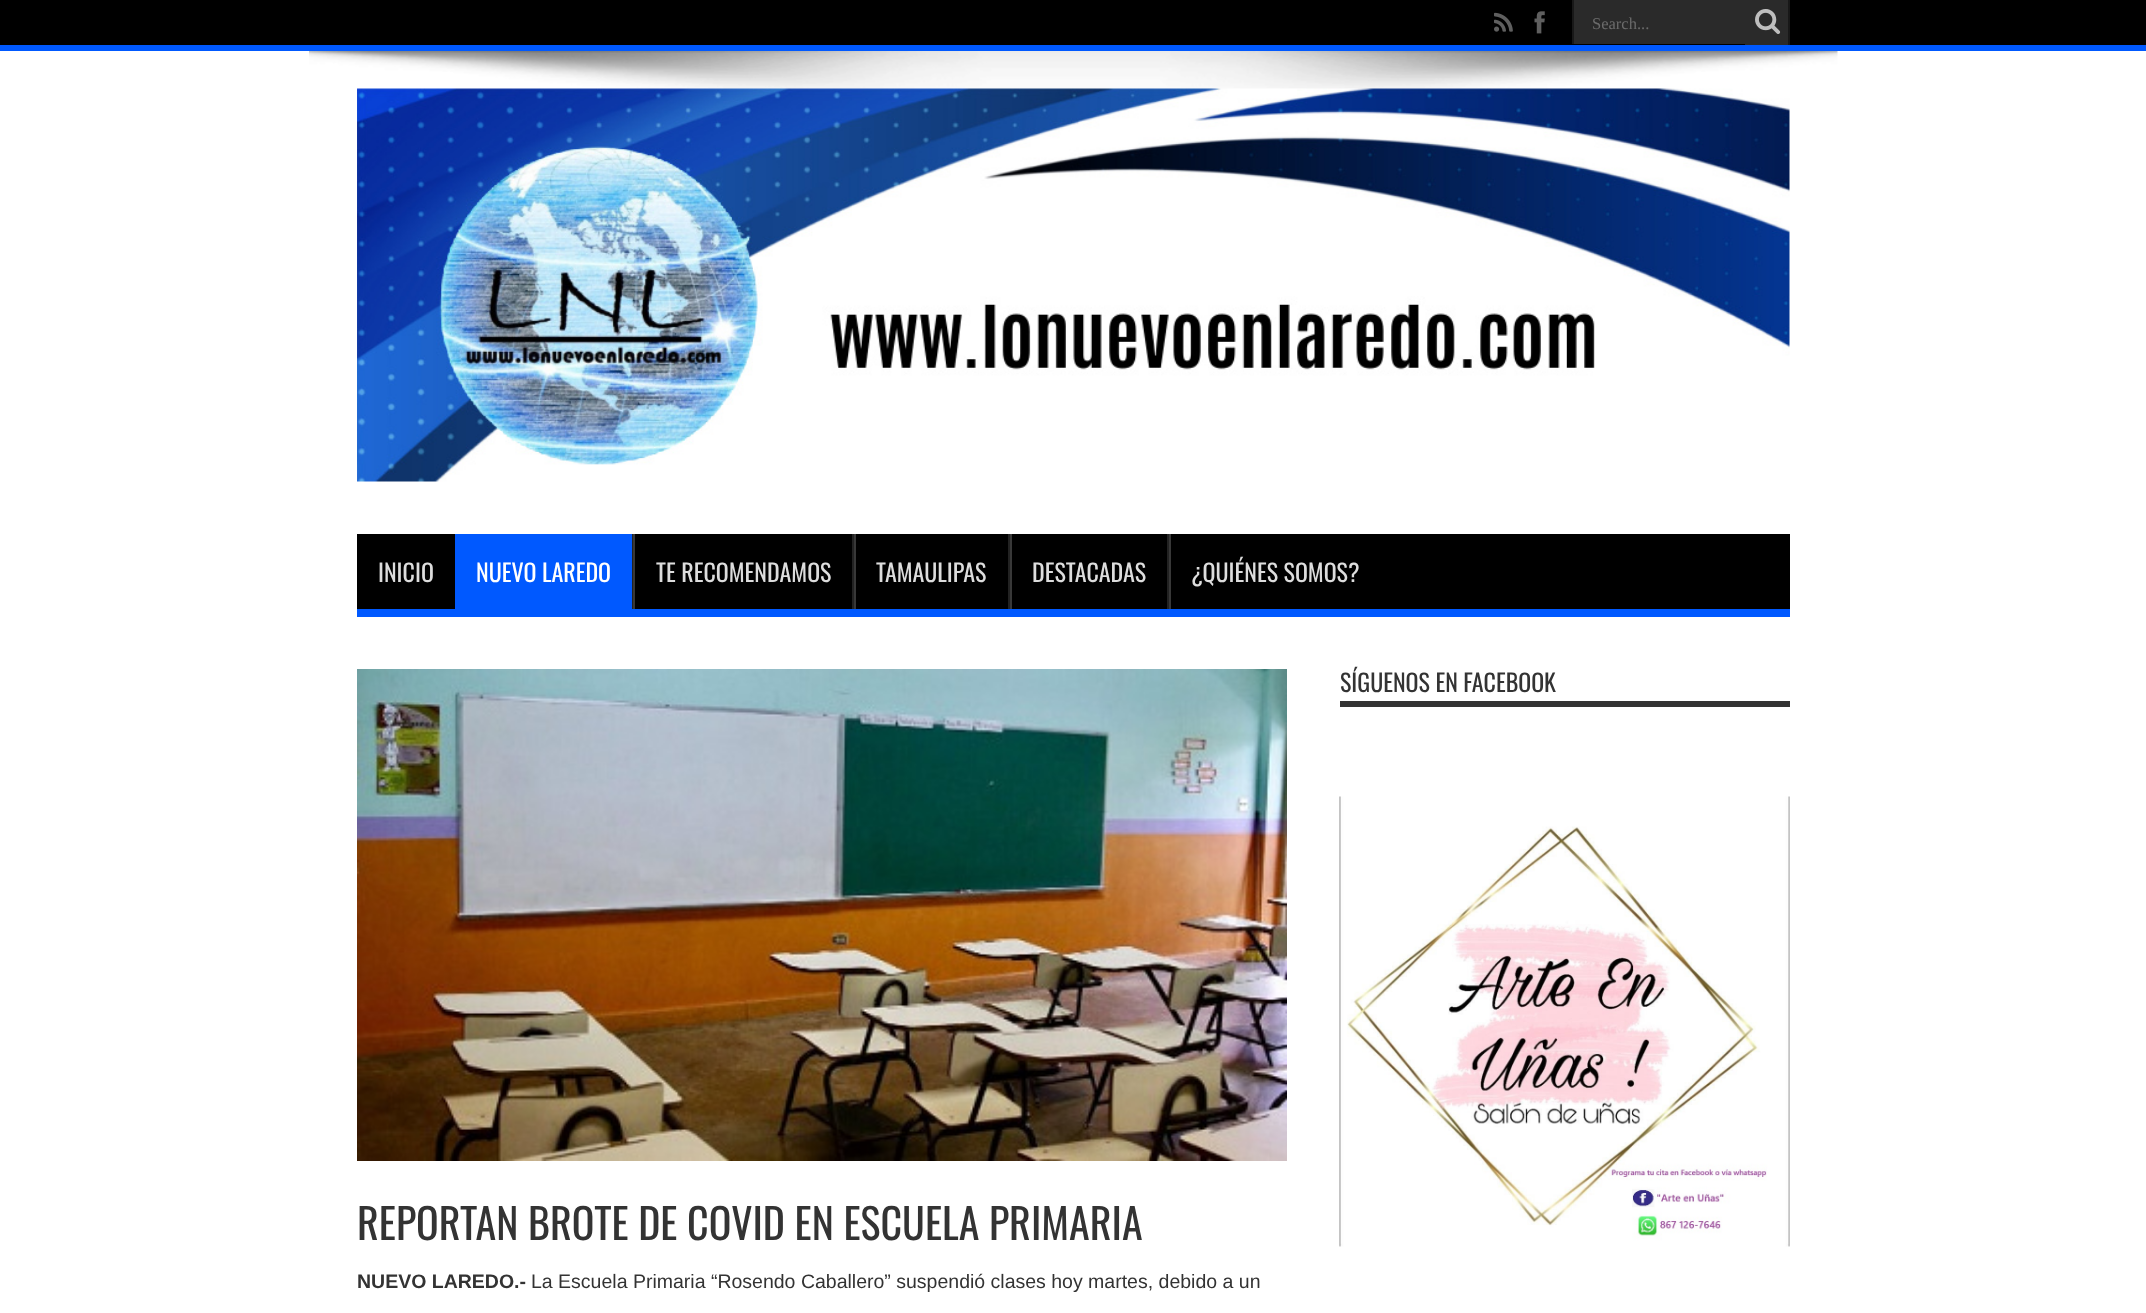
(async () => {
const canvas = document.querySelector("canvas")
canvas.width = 2146
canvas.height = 1313
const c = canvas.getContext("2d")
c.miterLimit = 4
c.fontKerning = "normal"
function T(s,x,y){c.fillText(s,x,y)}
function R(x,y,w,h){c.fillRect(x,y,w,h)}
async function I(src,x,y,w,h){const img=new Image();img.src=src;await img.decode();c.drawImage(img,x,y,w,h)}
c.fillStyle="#fff"
R(0,0,2146,1313)
c.fillStyle="#000"
R(0,0,2146,45)
c.fillStyle="#0059ff"
R(0,45,2146,6)
await I("1.png",1494,12,19,20)
await I("2.png",1534,11,11,23)
c.fillStyle="#2a2a2a"
R(1574,0,171,44)
c.fillStyle="#181818"
R(1572,0,2,44)
c.font="16.5px Liberation Serif"
c.fillStyle="#6b6b6b"
T("Search...",1592,29)
c.fillStyle="#2a2a2a"
R(1745,0,43,45)
c.fillStyle="#181818"
R(1788,0,2,45)
await I("3.png",1755,9,26,25)
await I("4.png",309,51,1529,38)
await I("5.png",357,88,1433,394)
c.fillStyle="#000"
R(357,534,1433,75)
c.fillStyle="#0059ff"
R(357,609,1433,8)
c.font="24px Oswald"
c.fillStyle="#ddd"
T("INICIO",378,582)
c.fillStyle="#0059ff"
R(455,534,177,75)
c.fillStyle="#fff"
T("NUEVO LAREDO",476,582)
c.fillStyle="#222"
R(632,534,1,75)
c.fillStyle="#383838"
R(633,534,2,75)
c.fillStyle="#ddd"
T("TE RECOMENDAMOS",656,582)
c.fillStyle="#222"
R(852,534,2,75)
c.fillStyle="#383838"
R(854,534,2,75)
c.fillStyle="#ddd"
T("TAMAULIPAS",876,582)
c.fillStyle="#222"
R(1008,534,2,75)
c.fillStyle="#383838"
R(1010,534,2,75)
c.fillStyle="#ddd"
T("DESTACADAS",1032,582)
c.fillStyle="#222"
R(1167,534,2,75)
c.fillStyle="#383838"
R(1169,534,2,75)
c.fillStyle="#ddd"
T("¿QUIÉNES SOMOS?",1191,582)
c.fillStyle="#333"
R(1340,701,450,6)
T("SÍGUENOS EN FACEBOOK",1340,692)
await I("6.png",1339,796,451,451)
await I("7.png",357,669,930,492)
c.font="42px Oswald"
T("REPORTAN BROTE DE COVID EN ESCUELA PRIMARIA",357,1240)
c.font="bold 19.5px Liberation Sans"
T("NUEVO LAREDO.-",357,1288)
c.font="19.5px Liberation Sans"
T("La Escuela Primaria “Rosendo Caballero” suspendió clases hoy martes, debido a un",531,1288)
})()
